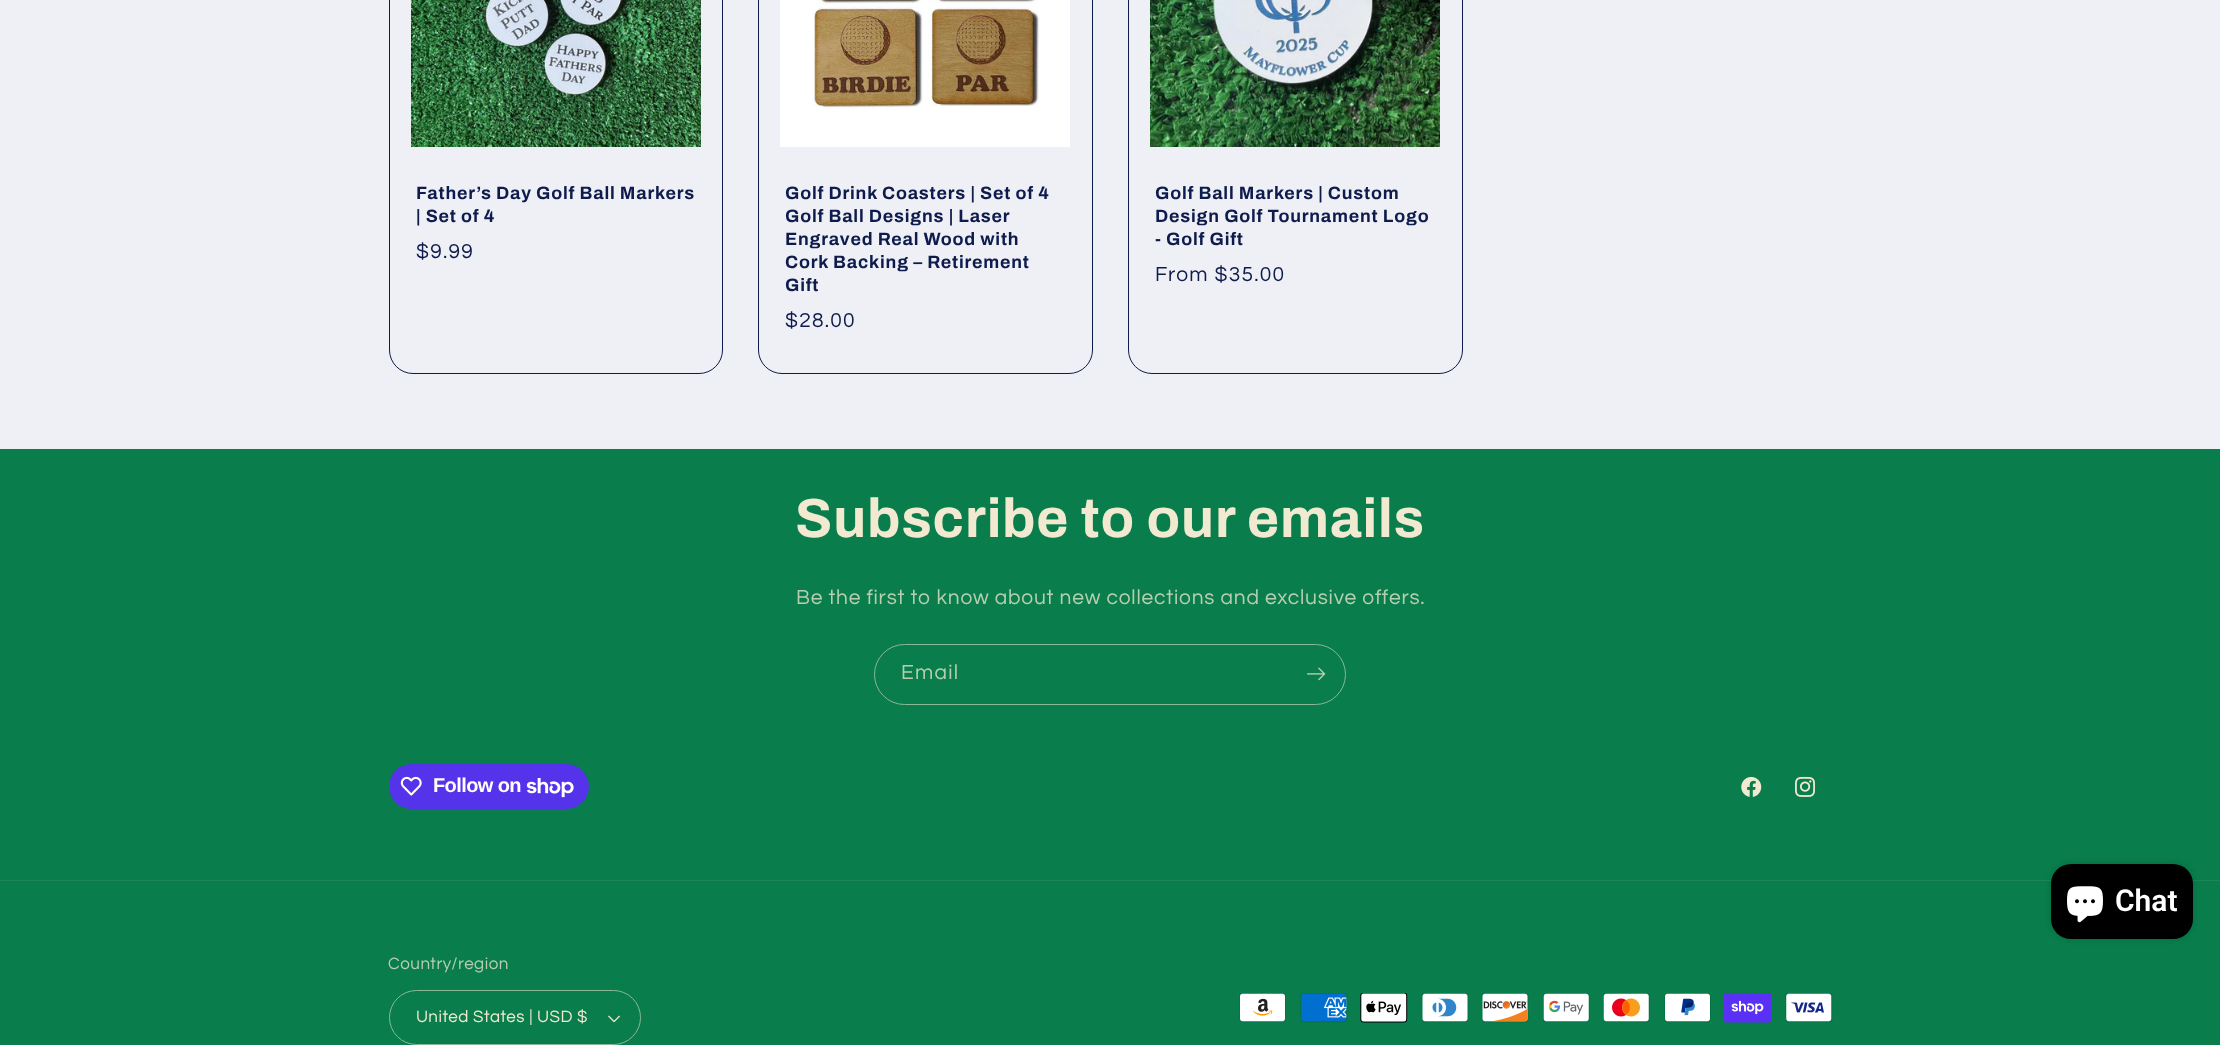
(async () => {
const canvas = document.querySelector("canvas")
canvas.width = 2220
canvas.height = 1045
const c = canvas.getContext("2d")
c.miterLimit = 4
c.fontKerning = "normal"
function T(s,x,y){c.fillText(s,x,y)}
function R(x,y,w,h){c.fillRect(x,y,w,h)}
function Q(x,y,w,h,r){c.beginPath();c.roundRect(x,y,w,h,r);c.fill()}
async function I(src,x,y,w,h){const img=new Image();img.src=src;await img.decode();c.drawImage(img,x,y,w,h)}
c.fillStyle="#eff0f5"
R(0,0,2220,1045)
c.beginPath()
c.roundRect(389.5,-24.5,333,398,23.5)
c.strokeStyle="#0e1b4d"
c.stroke()
await I("1.png",411,0,290,147)
c.letterSpacing="0.8px"
c.font="bold 17.9px Archivo"
c.fillStyle="#0e1b4d"
T("Father’s Day Golf Ball Markers",416,199)
T("| Set of 4",416,222)
c.letterSpacing="1.25px"
c.font="21px Questrial"
T("$9.99",416,258)
c.beginPath()
c.roundRect(758.5,-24.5,334,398,23.5)
c.stroke()
await I("2.png",780,0,290,147)
c.letterSpacing="0.8px"
c.font="bold 17.9px Archivo"
T("Golf Drink Coasters | Set of 4",785,199)
T("Golf Ball Designs | Laser",785,222)
T("Engraved Real Wood with",785,245)
T("Cork Backing – Retirement",785,268)
T("Gift",785,291)
c.letterSpacing="1.25px"
c.font="21px Questrial"
T("$28.00",785,327)
c.beginPath()
c.roundRect(1128.5,-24.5,334,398,23.5)
c.stroke()
await I("3.png",1150,0,290,147)
c.letterSpacing="0.8px"
c.font="bold 17.9px Archivo"
T("Golf Ball Markers | Custom",1155,199)
T("Design Golf Tournament Logo",1155,222)
T("- Golf Gift",1155,245)
c.letterSpacing="1.25px"
c.font="21px Questrial"
T("From $35.00",1155,281)
c.fillStyle="#097d4c"
R(0,449,2220,596)
c.letterSpacing="0.8px"
c.font="bold 55px Archivo"
c.fillStyle="#f1ead1"
T("Subscribe to our emails",795,537)
c.font="21px Questrial"
c.fillStyle="#b7cfb0"
T("Be the first to know about new collections and exclusive offers.",796,604)
c.beginPath()
c.roundRect(874.5,644.5,471,60,30)
c.strokeStyle="#89b995"
c.stroke()
c.letterSpacing="1.25px"
T("Email",901,679)
await I("4.png",1307,667,19,14)
c.fillStyle="#5433eb"
Q(389,764,200,45,22.5)
await I("5.png",400,776,22,20)
c.letterSpacing="-0.6px"
c.font="bold 20px Liberation Sans"
c.fillStyle="#fff"
T("Follow on",433,792)
await I("6.png",526,778,48,20)
await I("7.png",1741,776,21,21)
await I("8.png",1795,776,20,21)
c.fillStyle="#1c8657"
R(0,880,2220,1)
c.letterSpacing="0.5px"
c.font="17px Questrial"
c.fillStyle="#b7cfb0"
T("Country/region",388,969)
await I("9.png",608,1015,12,8)
c.beginPath()
c.roundRect(389.5,990.5,251,54,27)
c.stroke()
c.fillStyle="#f1ead1"
T("United States | USD $",416,1022)
await I("10.png",1239,993,47,30)
await I("11.png",1300,993,48,30)
await I("12.png",1360,993,48,30)
await I("13.png",1421,993,48,30)
await I("14.png",1481,993,48,30)
await I("15.png",1543,993,47,30)
await I("16.png",1603,993,47,30)
await I("17.png",1664,993,47,30)
await I("18.png",1724,993,47,30)
await I("19.png",1785,993,48,30)
c.fillStyle="#00000026"
c.filter="blur(3px)"
c.beginPath()
c.roundRect(2051,864,142,75,20)
c.fill()
c.filter="none"
c.fillStyle="#000"
Q(2051,864,142,75,20)
await I("20.png",2067,886,36,37)
c.letterSpacing="0px"
c.font="600 30px Roboto"
c.fillStyle="#fff"
T("Chat",2115,911)
})()
